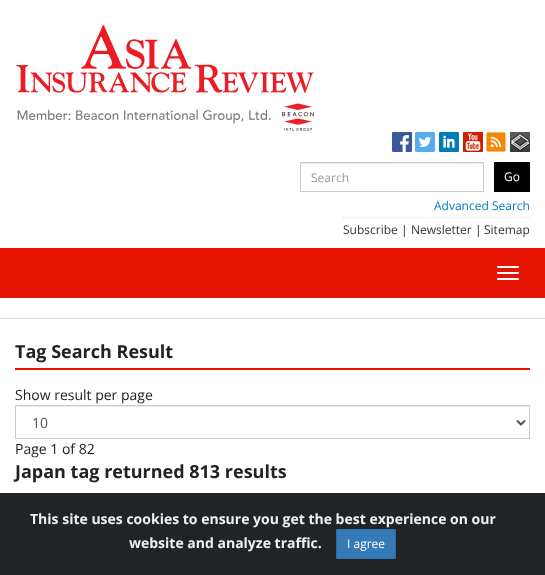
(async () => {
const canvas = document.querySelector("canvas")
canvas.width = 545
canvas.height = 575
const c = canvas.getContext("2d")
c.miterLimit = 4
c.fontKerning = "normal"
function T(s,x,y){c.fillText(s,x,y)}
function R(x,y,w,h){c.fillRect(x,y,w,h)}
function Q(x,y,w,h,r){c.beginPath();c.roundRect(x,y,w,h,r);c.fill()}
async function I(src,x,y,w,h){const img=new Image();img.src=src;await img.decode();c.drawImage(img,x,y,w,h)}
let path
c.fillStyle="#fff"
R(0,0,545,575)
await I("1.png",16,25,298,106)
await I("2.png",392,132,20,20)
await I("3.png",415,132,20,20)
await I("4.png",439,132,20,20)
await I("5.png",463,132,20,20)
await I("6.png",486,132,20,20)
await I("7.png",510,132,20,20)
c.fillStyle="#ececec"
R(301,163,182,1)
c.strokeStyle="#ccc"
c.strokeRect(300.5,162.5,183,29)
c.font="12px Open Sans"
c.fillStyle="#999"
T("Search",311,182)
c.fillStyle="#000"
R(494,162,36,30)
c.fillStyle="#fff"
T("Go",504,181)
c.fillStyle="#0678be"
T("Advanced Search",434,210)
path = new Path2D("M343 217.5h187")
c.strokeStyle="#ddd"
c.setLineDash([1,1])
c.stroke(path)
c.fillStyle="#333"
T("Subscribe",343,234)
c.fillStyle="#222"
T("|",401,234)
c.fillStyle="#333"
T("Newsletter",411,234)
c.fillStyle="#222"
T("|",475,234)
c.fillStyle="#333"
T("Sitemap",484,234)
c.fillStyle="#e61501"
R(0,248,545,50)
c.fillStyle="#fff"
Q(497,266,22,2,1)
Q(497,272,22,2,1)
Q(497,278,22,2,1)
c.fillStyle="#ddd"
R(0,318,545,1)
c.fillStyle="#e61501"
R(15,368,515,2)
c.font="bold 18px Open Sans"
c.fillStyle="#222"
T("Tag Search Result",15,358)
c.font="14px Open Sans"
T("Show result per page",15,400)
c.fillStyle="#ececec"
R(16,406,513,1)
c.strokeStyle="#ccc"
c.setLineDash([])
c.strokeRect(15.5,405.5,514,33)
path = new Path2D("M517 420.5l4 4l4-4")
c.strokeStyle="#555"
c.lineWidth=2
c.stroke(path)
c.fillStyle="#555"
T("10",32,428)
c.fillStyle="#222"
T("Page 1 of 82",15,454)
c.font="bold 18px Open Sans"
T("Japan tag returned 813 results",15,478)
c.fillStyle="#212327"
R(0,493,545,82)
c.font="bold 14px Open Sans"
c.fillStyle="#ecf0f1"
T("This site uses cookies to ensure you get the best experience on our",30,524)
T("website and analyze traffic.",129,548)
c.fillStyle="#337ab7"
c.beginPath()
c.rect(336.5,529.5,59,29)
c.fill()
c.strokeStyle="#2e6da4"
c.lineWidth=1
c.stroke()
c.font="12px Open Sans"
c.fillStyle="#fff"
T("I agree",347,548)
})()
